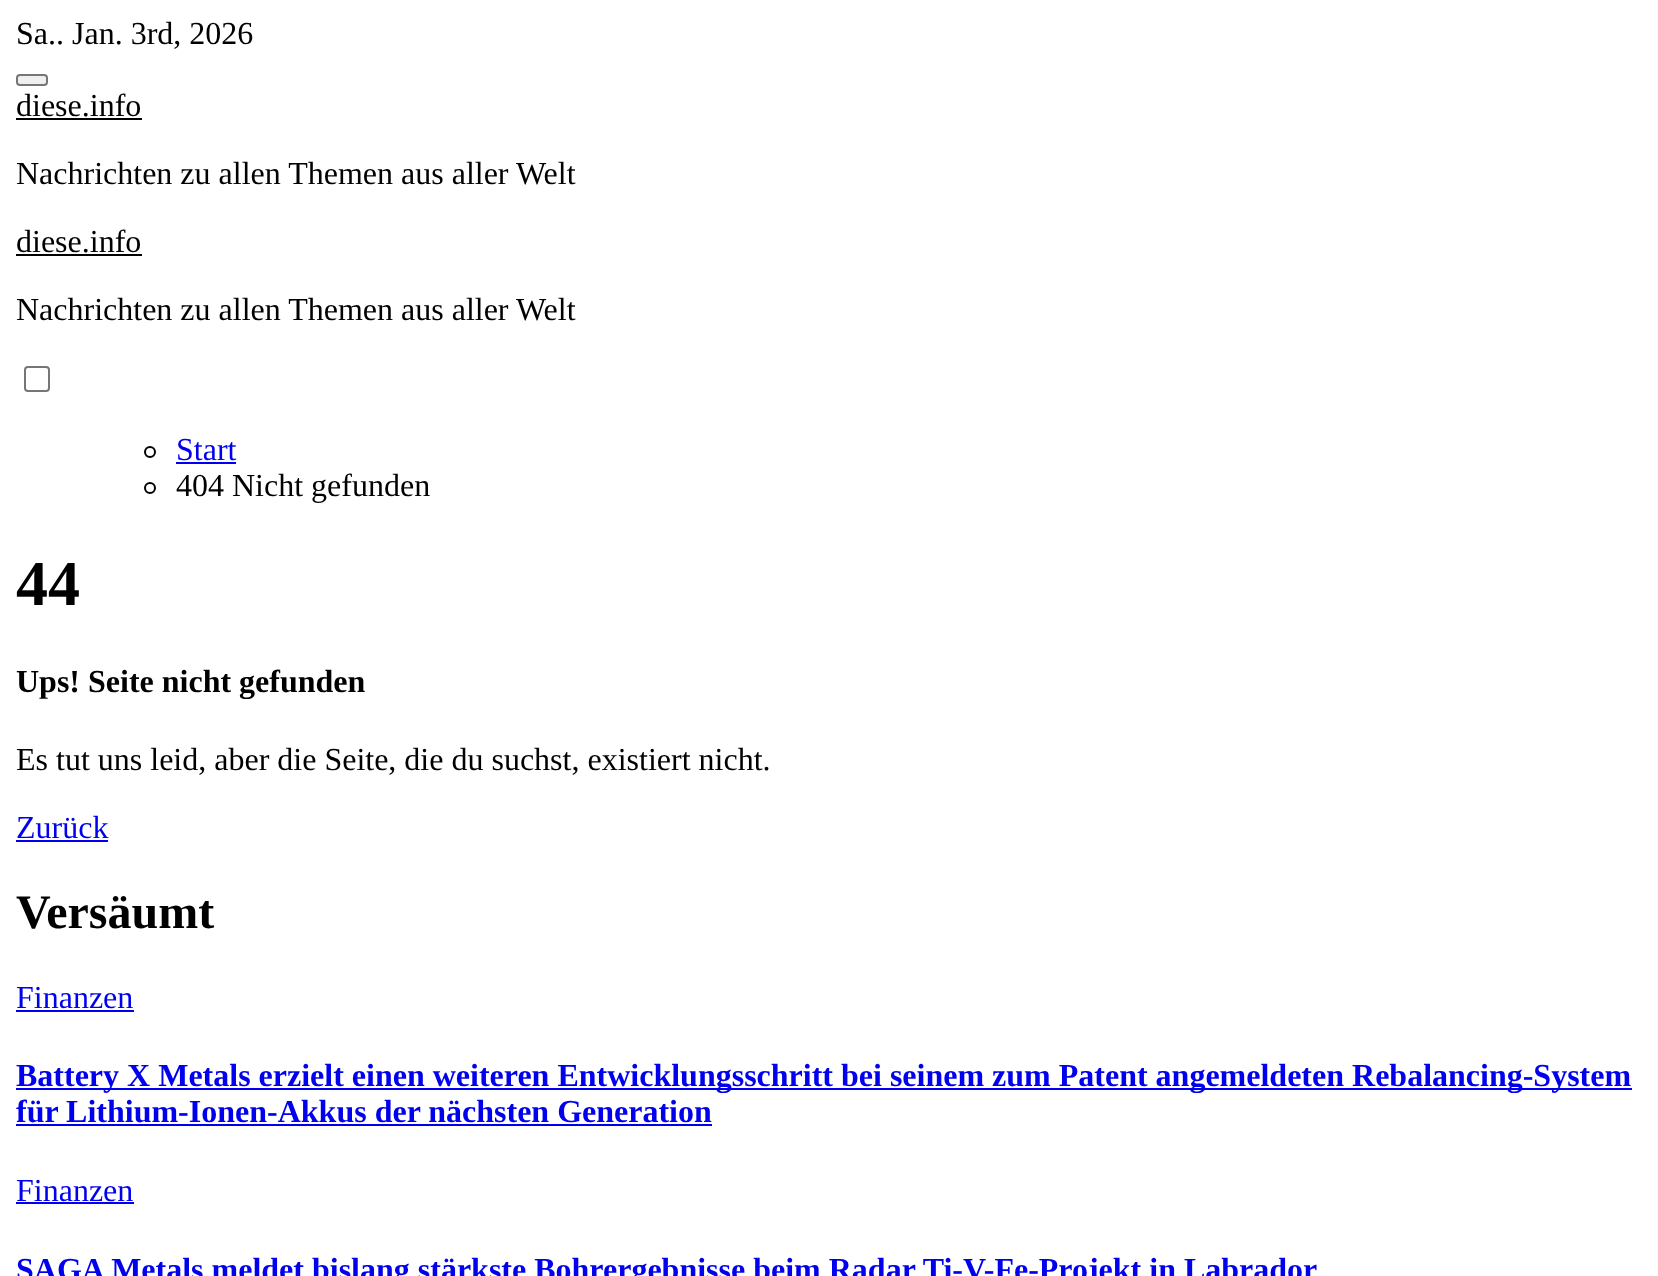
(async () => {
const canvas = document.querySelector("canvas")
canvas.width = 1658
canvas.height = 1276
const c = canvas.getContext("2d")
c.miterLimit = 4
c.fontKerning = "normal"
function T(s,x,y){c.fillText(s,x,y)}
function R(x,y,w,h){c.fillRect(x,y,w,h)}
c.fillStyle="#fff"
R(0,0,1658,1276)
c.font="32px Liberation Serif"
c.fillStyle="#000"
T("Sa.. Jan. 3rd, 2026",16,44)
c.fillStyle="#efefef"
c.beginPath()
c.roundRect(17,75,30,10,3)
c.fill()
c.strokeStyle="#767676"
c.lineWidth=2
c.stroke()
c.fillStyle="#000"
T("diese.info",16,116)
R(16,118,126,2)
T("Nachrichten zu allen Themen aus aller Welt",16,184)
T("diese.info",16,252)
R(16,254,126,2)
T("Nachrichten zu allen Themen aus aller Welt",16,320)
c.beginPath()
c.roundRect(25,367,24,24,3)
c.stroke()
c.beginPath()
c.arc(150,452,5,0,7)
c.strokeStyle="#000"
c.stroke()
c.fillStyle="#00e"
T("Start",176,460)
R(176,462,60,2)
c.beginPath()
c.arc(150,488,5,0,7)
c.stroke()
c.fillStyle="#000"
T("404 Nicht gefunden",176,496)
c.font="bold 64px Liberation Serif"
T("44",16,605)
c.font="bold 32px Liberation Serif"
T("Ups! Seite nicht gefunden",16,692)
c.font="32px Liberation Serif"
T("Es tut uns leid, aber die Seite, die du suchst, existiert nicht.",16,770)
c.fillStyle="#00e"
T("Zurück",16,838)
R(16,840,92,2)
c.font="bold 48px Liberation Serif"
c.fillStyle="#000"
T("Versäumt",16,928)
c.font="32px Liberation Serif"
c.fillStyle="#00e"
T("Finanzen",16,1008)
R(16,1010,118,2)
R(16,1088,1616,2)
c.font="bold 32px Liberation Serif"
T("Battery X Metals erzielt einen weiteren Entwicklungsschritt bei seinem zum Patent angemeldeten Rebalancing-System",16,1086)
T("für Lithium-Ionen-Akkus der nächsten Generation",16,1122)
R(16,1124,696,2)
c.font="32px Liberation Serif"
T("Finanzen",16,1201)
R(16,1202,118,2)
c.font="bold 32px Liberation Serif"
T("SAGA Metals meldet bislang stärkste Bohrergebnisse beim Radar Ti-V-Fe-Projekt in Labrador",16,1280)
})()
